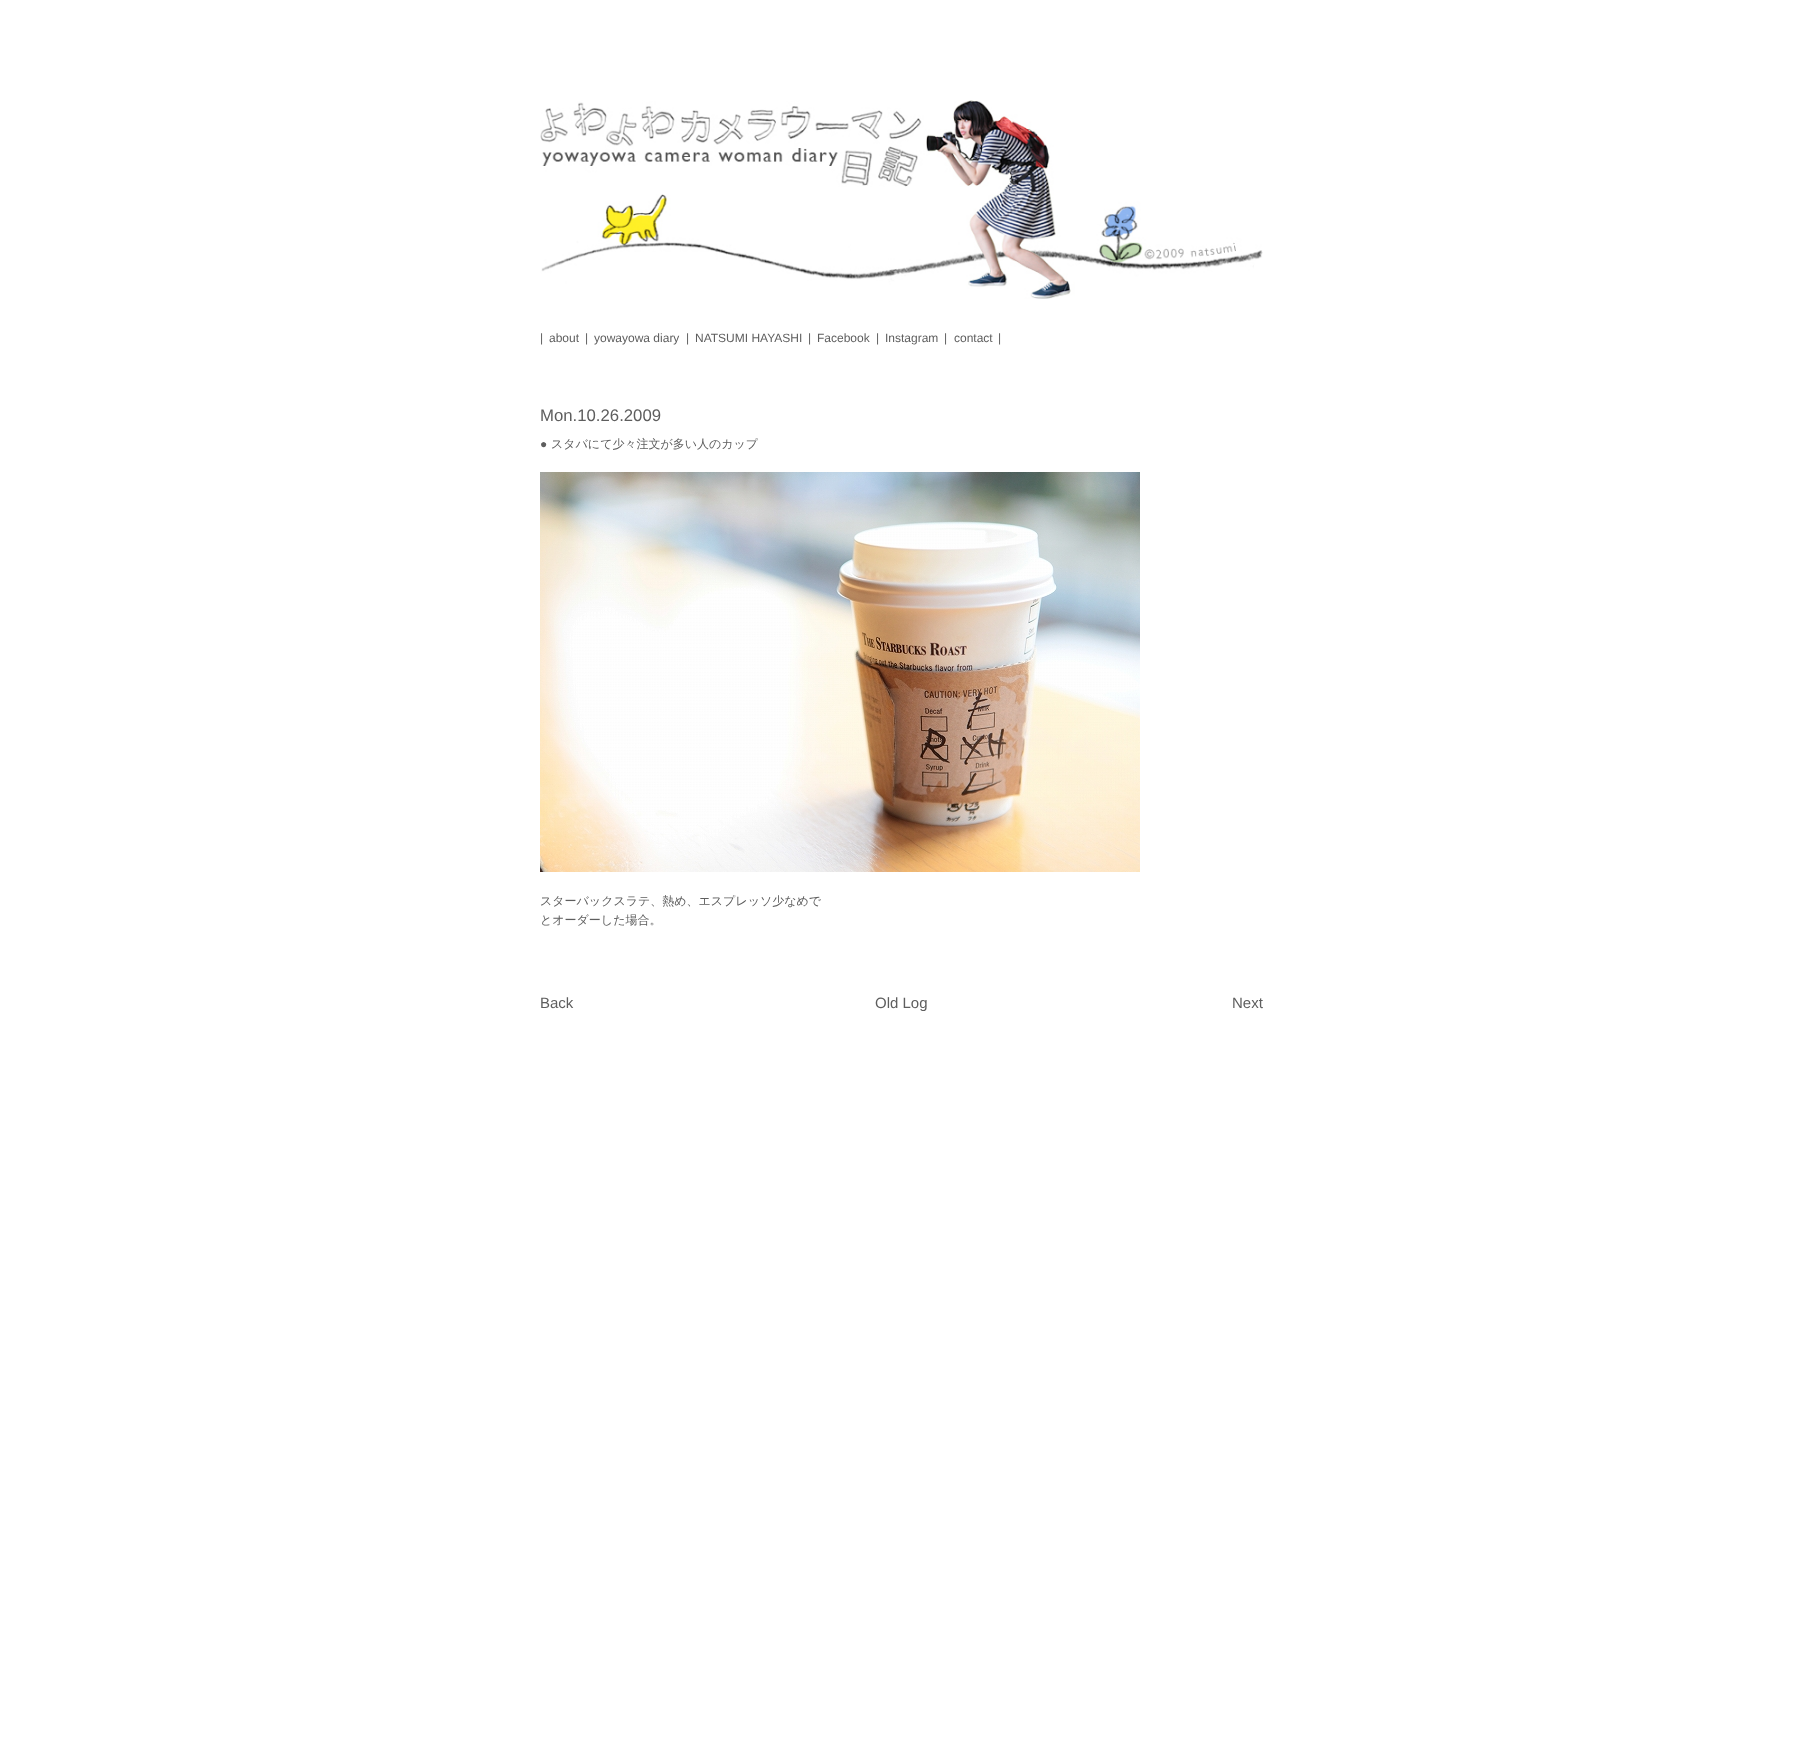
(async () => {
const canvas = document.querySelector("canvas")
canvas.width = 1803
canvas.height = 1754
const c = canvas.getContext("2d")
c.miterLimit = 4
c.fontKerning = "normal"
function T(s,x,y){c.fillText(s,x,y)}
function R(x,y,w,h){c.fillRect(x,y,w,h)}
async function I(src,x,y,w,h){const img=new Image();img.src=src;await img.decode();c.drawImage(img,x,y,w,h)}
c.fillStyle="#fff"
R(0,0,1803,1754)
await I("1.png",540,100,723,199)
c.font="12px Liberation Sans"
c.fillStyle="#5e5e5e"
T("|",540,342)
T("about",549,342)
T("|",585,342)
T("yowayowa diary",594,342)
T("|",686,342)
T("NATSUMI HAYASHI",695,342)
T("|",808,342)
T("Facebook",817,342)
T("|",876,342)
T("Instagram",885,342)
T("|",944,342)
T("contact",954,342)
T("|",998,342)
c.font="16.75px Liberation Sans"
T("Mon.10.26.2009",540,421)
c.font="12px Liberation Sans"
T("●",540,448)
c.font="500 12px WenQuanYi Zen Hei"
T("スタバにて少々注文が多い人のカップ",551,448)
await I("2.png",540,472,600,400)
T("スターバックスラテ、熱め、エスプレッソ少なめで",540,905)
T("とオーダーした場合。",540,924)
c.font="15px Liberation Sans"
T("Back",540,1008)
T("Old Log",875,1008)
T("Next",1232,1008)
})()
